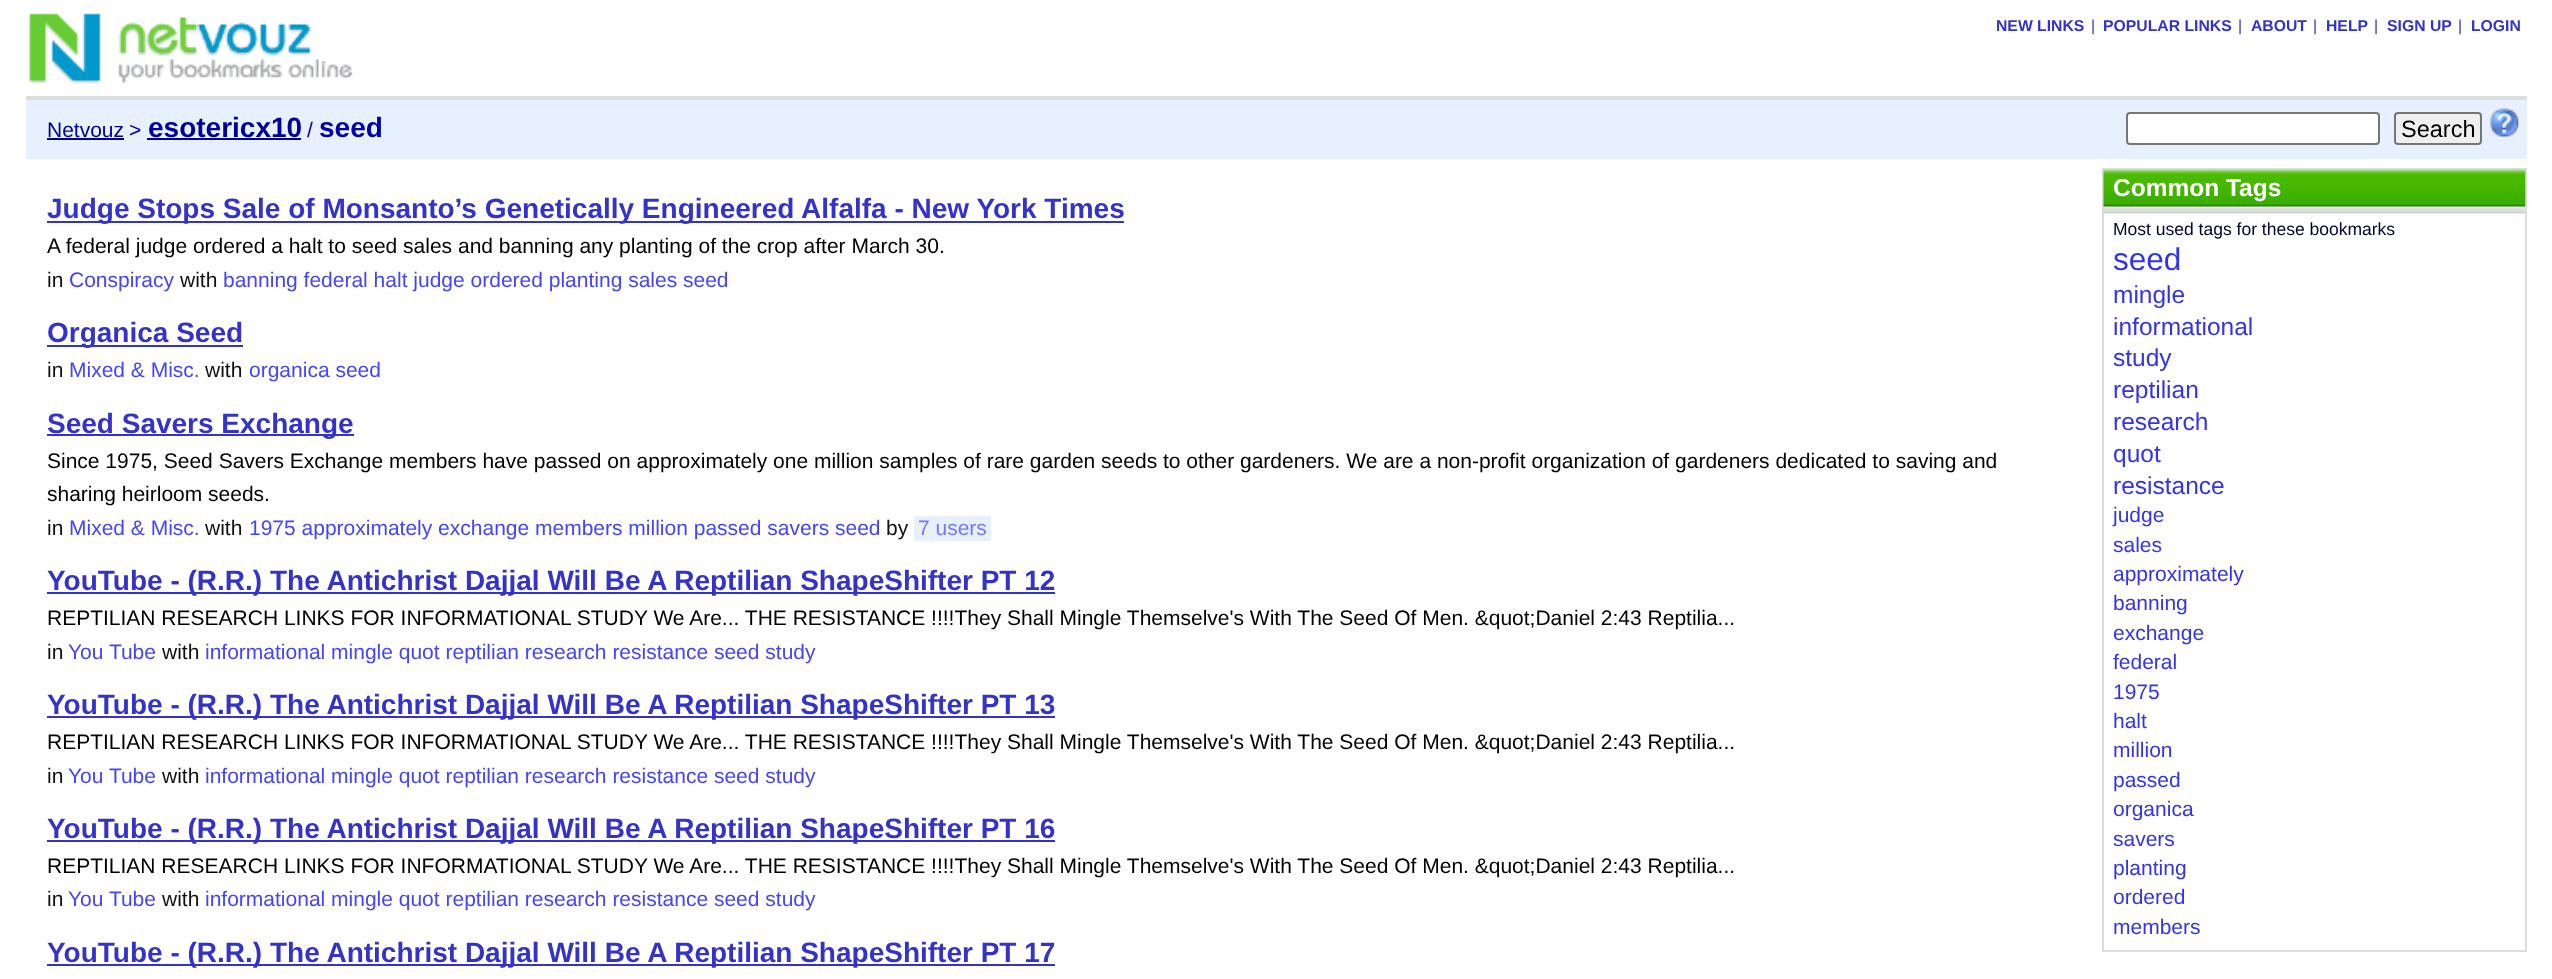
(async () => {
const canvas = document.querySelector("canvas")
canvas.width = 2552
canvas.height = 979
const c = canvas.getContext("2d")
c.miterLimit = 4
c.fontKerning = "normal"
function T(s,x,y){c.fillText(s,x,y)}
function R(x,y,w,h){c.fillRect(x,y,w,h)}
async function I(src,x,y,w,h){const img=new Image();img.src=src;await img.decode();c.drawImage(img,x,y,w,h)}
c.fillStyle="#fff"
R(0,0,2552,979)
c.fillStyle="#ddd"
R(26,96,2501,4)
await I("1.png",28,13,325,71)
c.font="bold 15.75px Liberation Sans"
c.fillStyle="#33c"
T("NEW LINKS",1996,31)
c.font="15.75px Liberation Sans"
T("|",2091,31)
c.font="bold 15.75px Liberation Sans"
T("POPULAR LINKS",2103,31)
c.font="15.75px Liberation Sans"
T("|",2238,31)
c.font="bold 15.75px Liberation Sans"
T("ABOUT",2251,31)
c.font="15.75px Liberation Sans"
T("|",2313,31)
c.font="bold 15.75px Liberation Sans"
T("HELP",2326,31)
c.font="15.75px Liberation Sans"
T("|",2374,31)
c.font="bold 15.75px Liberation Sans"
T("SIGN UP",2387,31)
c.font="15.75px Liberation Sans"
T("|",2458,31)
c.font="bold 15.75px Liberation Sans"
T("LOGIN",2471,31)
c.fillStyle="#e6f0ff"
R(26,100,2501,59)
c.font="21px Liberation Sans"
c.fillStyle="#009"
T("Netvouz",47,137)
R(47,138,77,2)
c.fillStyle="#00a"
T(">",129,137)
c.fillStyle="#009"
R(147,138,154,2)
c.font="bold 28px Liberation Sans"
T("esotericx10",148,137)
c.font="21px Liberation Sans"
c.fillStyle="#00a"
T("/",307,137)
c.font="bold 28px Liberation Sans"
T("seed",319,137)
c.fillStyle="#fff"
c.beginPath()
c.roundRect(2127,113,252,31,3)
c.fill()
c.strokeStyle="#767676"
c.lineWidth=2
c.stroke()
c.fillStyle="#efefef"
c.beginPath()
c.roundRect(2395,113,86,31,3)
c.fill()
c.stroke()
c.font="23.5px Liberation Sans"
c.fillStyle="#000"
T("Search",2401,137)
await I("2.png",2490,108,29,29)
c.fillStyle="#33c"
R(47,221,1077,2)
c.font="bold 28px Liberation Sans"
T("Judge Stops Sale of Monsanto’s Genetically Engineered Alfalfa - New York Times",47,218)
c.font="21px Liberation Sans"
c.fillStyle="#000"
T("A federal judge ordered a halt to seed sales and banning any planting of the crop after March 30.",47,253)
c.fillStyle="#111"
T("in",47,287)
c.fillStyle="#44f"
T("Conspiracy",69,287)
c.fillStyle="#111"
T("with",180,287)
c.fillStyle="#44f"
T("banning federal halt judge ordered planting sales seed",223,287)
c.fillStyle="#33c"
R(47,345,196,2)
c.font="bold 28px Liberation Sans"
T("Organica Seed",47,342)
c.font="21px Liberation Sans"
c.fillStyle="#111"
T("in",47,377)
c.fillStyle="#44f"
T("Mixed & Misc.",69,377)
c.fillStyle="#111"
T("with",205,377)
c.fillStyle="#44f"
T("organica seed",249,377)
c.fillStyle="#33c"
R(47,434,307,2)
c.font="bold 28px Liberation Sans"
T("Seed Savers Exchange",47,433)
c.font="21px Liberation Sans"
c.fillStyle="#000"
T("Since 1975, Seed Savers Exchange members have passed on approximately one million samples of rare garden seeds to other gardeners. We are a non-profit organization of gardeners dedicated to saving and",47,468)
T("sharing heirloom seeds.",47,501)
c.fillStyle="#111"
T("in",47,535)
c.fillStyle="#44f"
T("Mixed & Misc.",69,535)
c.fillStyle="#111"
T("with",205,535)
c.fillStyle="#44f"
T("1975 approximately exchange members million passed savers seed",249,535)
c.fillStyle="#111"
T("by",886,535)
c.fillStyle="#e6f0ff"
R(914,516,77,25)
c.fillStyle="#77f"
T("7 users",918,535)
c.fillStyle="#33c"
R(47,592,1008,2)
c.font="bold 28px Liberation Sans"
T("YouTube - (R.R.) The Antichrist Dajjal Will Be A Reptilian ShapeShifter PT 12",47,590)
c.font="21px Liberation Sans"
c.fillStyle="#000"
T("REPTILIAN RESEARCH LINKS FOR INFORMATIONAL STUDY We Are... THE RESISTANCE !!!!They Shall Mingle Themselve's With The Seed Of Men. &quot;Daniel 2:43 Reptilia...",47,625)
c.fillStyle="#111"
T("in",47,659)
c.fillStyle="#44f"
T("You Tube",68,659)
c.fillStyle="#111"
T("with",162,659)
c.fillStyle="#44f"
T("informational mingle quot reptilian research resistance seed study",205,659)
c.fillStyle="#33c"
R(47,716,1008,2)
c.font="bold 28px Liberation Sans"
T("YouTube - (R.R.) The Antichrist Dajjal Will Be A Reptilian ShapeShifter PT 13",47,714)
c.font="21px Liberation Sans"
c.fillStyle="#000"
T("REPTILIAN RESEARCH LINKS FOR INFORMATIONAL STUDY We Are... THE RESISTANCE !!!!They Shall Mingle Themselve's With The Seed Of Men. &quot;Daniel 2:43 Reptilia...",47,749)
c.fillStyle="#111"
T("in",47,783)
c.fillStyle="#44f"
T("You Tube",68,783)
c.fillStyle="#111"
T("with",162,783)
c.fillStyle="#44f"
T("informational mingle quot reptilian research resistance seed study",205,783)
c.fillStyle="#33c"
R(47,840,1008,2)
c.font="bold 28px Liberation Sans"
T("YouTube - (R.R.) The Antichrist Dajjal Will Be A Reptilian ShapeShifter PT 16",47,838)
c.font="21px Liberation Sans"
c.fillStyle="#000"
T("REPTILIAN RESEARCH LINKS FOR INFORMATIONAL STUDY We Are... THE RESISTANCE !!!!They Shall Mingle Themselve's With The Seed Of Men. &quot;Daniel 2:43 Reptilia...",47,873)
c.fillStyle="#111"
T("in",47,906)
c.fillStyle="#44f"
T("You Tube",68,906)
c.fillStyle="#111"
T("with",162,906)
c.fillStyle="#44f"
T("informational mingle quot reptilian research resistance seed study",205,906)
c.fillStyle="#33c"
R(47,964,1008,2)
c.font="bold 28px Liberation Sans"
T("YouTube - (R.R.) The Antichrist Dajjal Will Be A Reptilian ShapeShifter PT 17",47,962)
c.strokeStyle="#ddd"
c.strokeRect(2103,169,423,782)
await I("3.png",2103,169,423,45)
c.font="bold 24.5px Liberation Sans"
c.fillStyle="#fff"
T("Common Tags",2113,196)
c.font="17.5px Liberation Sans"
c.fillStyle="#003"
T("Most used tags for these bookmarks",2113,235)
c.font="31.5px Liberation Sans"
c.fillStyle="#33e"
T("seed",2113,270)
c.font="24.5px Liberation Sans"
T("mingle",2113,303)
T("informational",2113,335)
T("study",2113,366)
T("reptilian",2113,398)
T("research",2113,430)
T("quot",2113,462)
T("resistance",2113,494)
c.font="21px Liberation Sans"
T("judge",2113,522)
T("sales",2113,552)
T("approximately",2113,581)
T("banning",2113,610)
T("exchange",2113,640)
T("federal",2113,669)
T("1975",2113,699)
T("halt",2113,728)
T("million",2113,757)
T("passed",2113,787)
T("organica",2113,816)
T("savers",2113,846)
T("planting",2113,875)
T("ordered",2113,904)
T("members",2113,934)
})()
